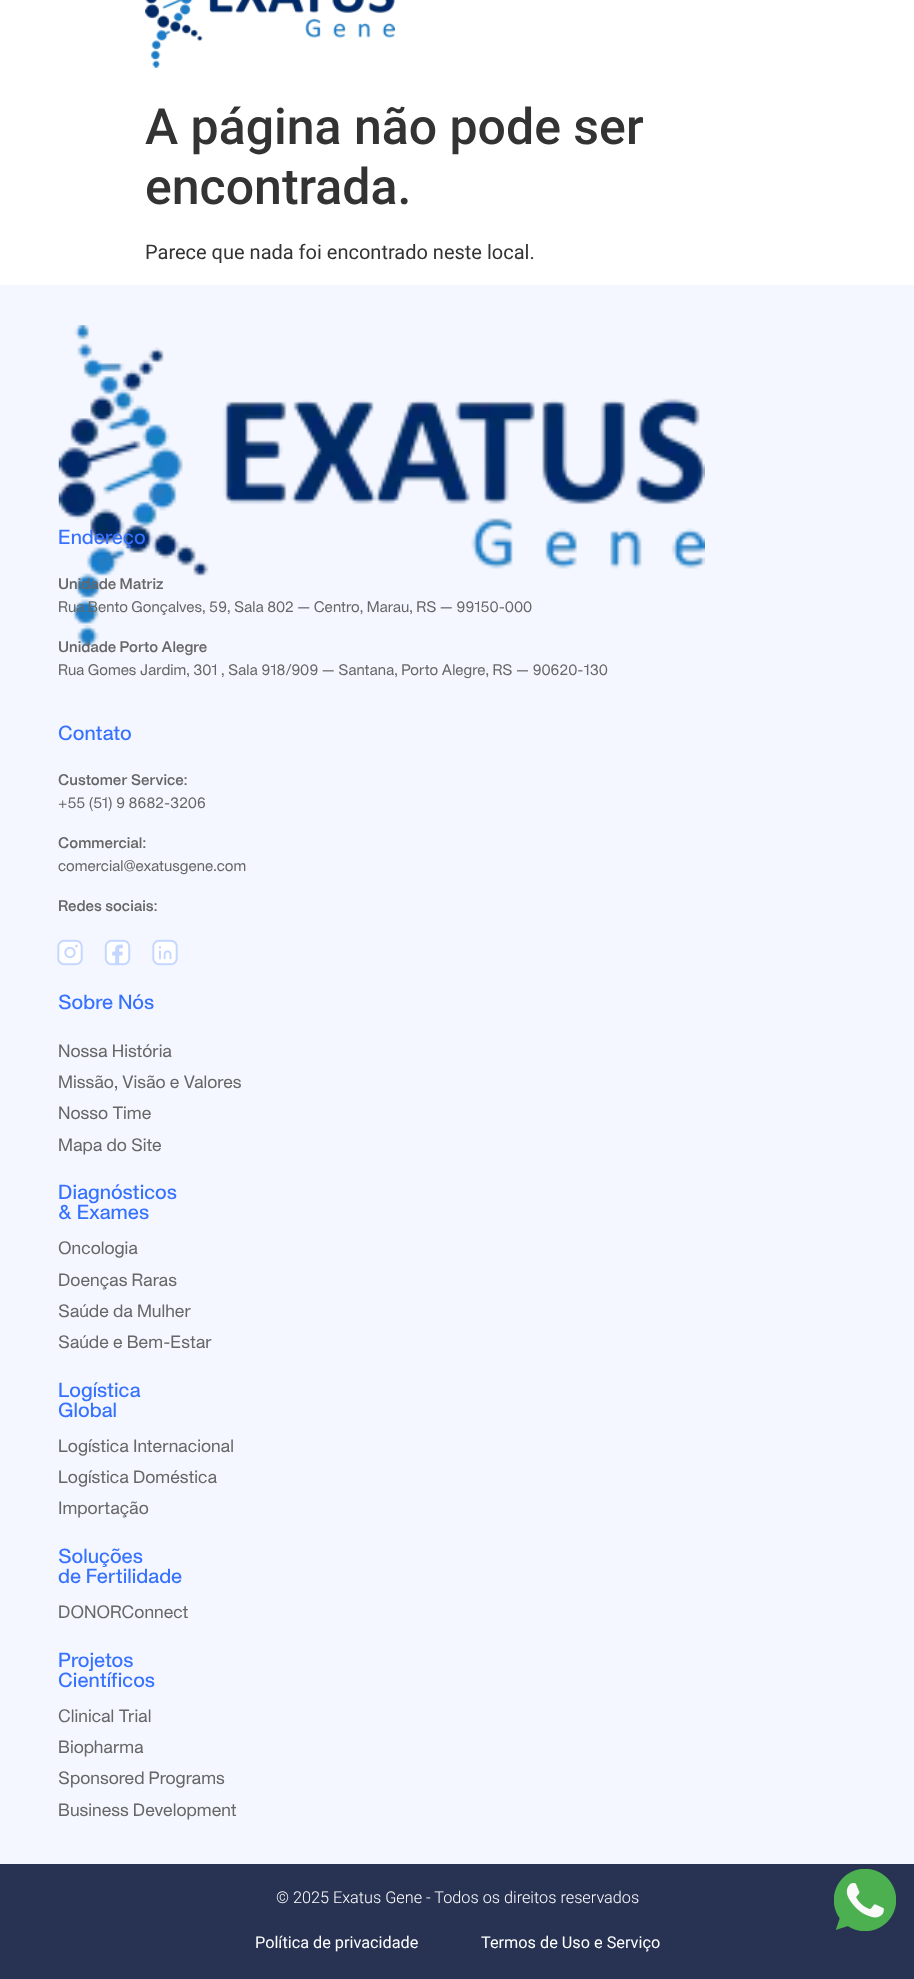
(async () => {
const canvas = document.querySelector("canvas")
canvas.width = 914
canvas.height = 1979
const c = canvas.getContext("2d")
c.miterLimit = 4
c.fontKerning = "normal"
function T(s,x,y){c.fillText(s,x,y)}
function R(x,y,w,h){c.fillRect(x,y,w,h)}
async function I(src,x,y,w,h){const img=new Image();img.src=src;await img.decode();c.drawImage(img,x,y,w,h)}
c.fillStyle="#fff"
R(0,0,914,1979)
await I("1.png",145,0,250,68)
c.font="500 50px Roboto"
c.fillStyle="#333"
T("A página não pode ser",145,144)
T("encontrada.",145,204)
c.font="20px Roboto"
T("Parece que nada foi encontrado neste local.",145,259)
c.fillStyle="#f4f7ff"
R(0,285,914,1579)
await I("2.png",58,325,647,321)
c.font="500 20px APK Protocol"
c.fillStyle="#3772ff"
T("Endereço",58,544)
c.font="600 15px APK Protocol"
c.fillStyle="#676767"
T("Unidade Matriz",58,589)
c.font="15px APK Protocol"
T("Rua Bento Gonçalves, 59, Sala 802 — Centro, Marau, RS — 99150-000",58,612)
c.font="600 15px APK Protocol"
T("Unidade Porto Alegre",58,652)
c.font="15px APK Protocol"
T("Rua Gomes Jardim, 301 , Sala 918/909 — Santana, Porto Alegre, RS — 90620-130",58,675)
c.font="500 20px APK Protocol"
c.fillStyle="#3772ff"
T("Contato",58,740)
c.font="600 15px APK Protocol"
c.fillStyle="#676767"
T("Customer Service:",58,785)
c.font="15px APK Protocol"
T("+55 (51) 9 8682-3206",58,808)
c.font="600 15px APK Protocol"
T("Commercial:",58,848)
c.font="15px APK Protocol"
T("comercial@exatusgene.com",58,871)
c.font="600 15px APK Protocol"
T("Redes sociais:",58,911)
await I("3.png",57,939,26,27)
await I("4.png",104,939,27,27)
await I("5.png",152,939,26,27)
c.font="500 20px APK Protocol"
c.fillStyle="#3772ff"
T("Sobre Nós",58,1009)
c.font="17.5px APK Protocol"
c.fillStyle="#676767"
T("Nossa História",58,1057)
T("Missão, Visão e Valores",58,1088)
T("Nosso Time",58,1119)
T("Mapa do Site",58,1151)
c.font="500 20px APK Protocol"
c.fillStyle="#3772ff"
T("Diagnósticos",58,1199)
T("& Exames",58,1219)
c.font="17.5px APK Protocol"
c.fillStyle="#676767"
T("Oncologia",58,1254)
T("Doenças Raras",58,1286)
T("Saúde da Mulher",58,1317)
T("Saúde e Bem-Estar",58,1348)
c.font="500 20px APK Protocol"
c.fillStyle="#3772ff"
T("Logística",58,1397)
T("Global",58,1417)
c.font="17.5px APK Protocol"
c.fillStyle="#676767"
T("Logística Internacional",58,1452)
T("Logística Doméstica",58,1483)
T("Importação",58,1514)
c.font="500 20px APK Protocol"
c.fillStyle="#3772ff"
T("Soluções",58,1563)
T("de Fertilidade",58,1583)
c.font="17.5px APK Protocol"
c.fillStyle="#676767"
T("DONORConnect",58,1618)
c.font="500 20px APK Protocol"
c.fillStyle="#3772ff"
T("Projetos",58,1667)
T("Científicos",58,1687)
c.font="17.5px APK Protocol"
c.fillStyle="#676767"
T("Clinical Trial",58,1722)
T("Biopharma",58,1753)
T("Sponsored Programs",58,1784)
T("Business Development",58,1816)
c.fillStyle="#283353"
R(0,1864,914,115)
c.font="300 16.25px Roboto"
c.fillStyle="#fff"
T("© 2025 Exatus Gene - Todos os direitos reservados",276,1903)
await I("6.png",834,1869,62,62)
c.font="16.25px Roboto"
T("Política de privacidade",255,1948)
T("Termos de Uso e Serviço",481,1948)
})()
